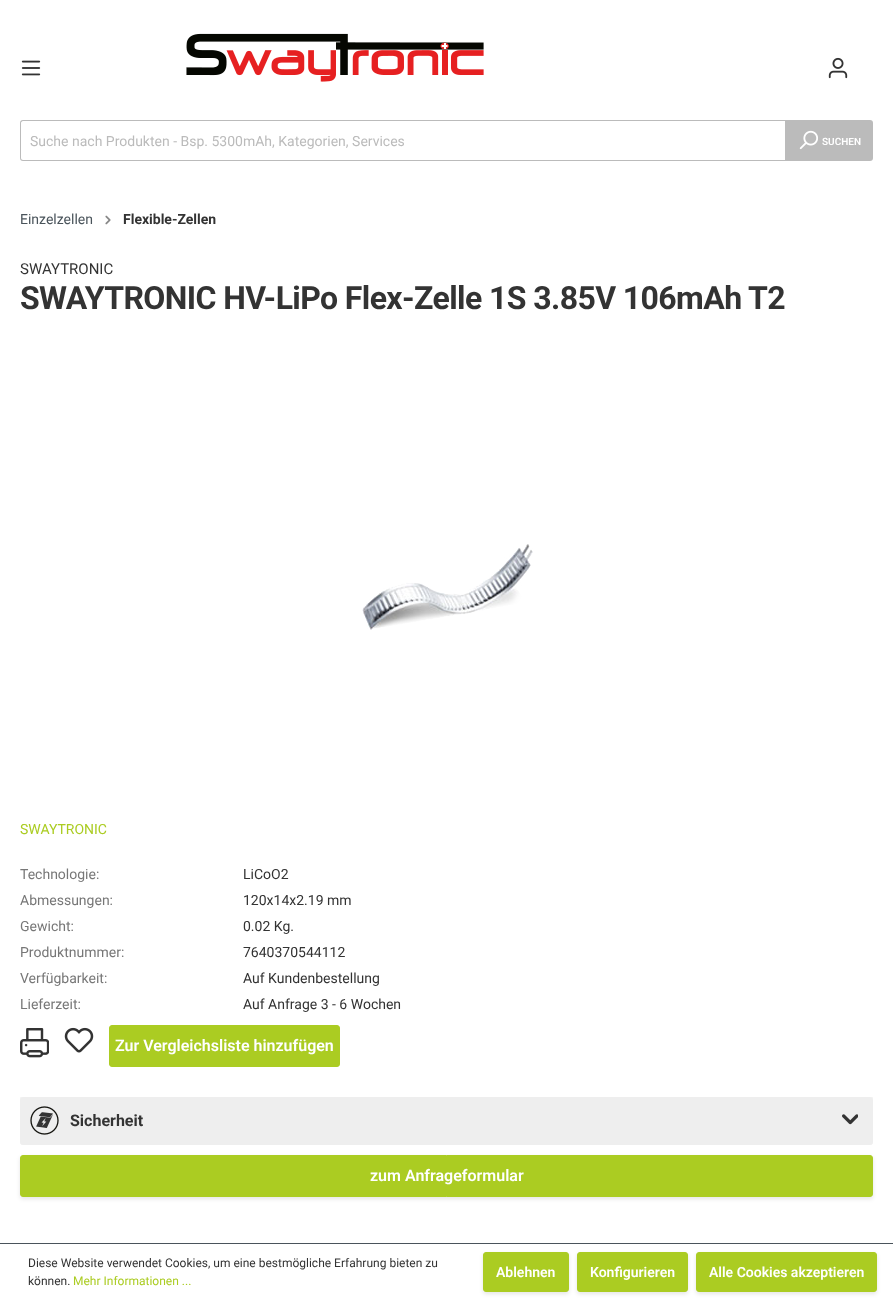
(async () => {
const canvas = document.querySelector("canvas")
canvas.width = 893
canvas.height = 1300
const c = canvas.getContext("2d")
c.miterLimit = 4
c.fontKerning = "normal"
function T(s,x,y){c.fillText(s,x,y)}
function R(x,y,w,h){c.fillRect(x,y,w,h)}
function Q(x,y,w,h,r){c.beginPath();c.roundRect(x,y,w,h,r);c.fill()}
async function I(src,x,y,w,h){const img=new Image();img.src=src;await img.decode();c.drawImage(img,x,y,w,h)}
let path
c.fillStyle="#fff"
R(0,0,893,1300)
await I("1.png",21,60,20,16)
await I("2.png",186,33,298,49)
await I("3.png",828,57,20,22)
c.fillStyle="#bbb"
path = new Path2D("M23 120h763v41h-763c-2 0-3-1-3-3v-35c0-2 1-3 3-3zm0 1h763v39h-763c-1 0-2-1-2-2v-35c0-1 1-2 2-2z")
c.fill(path,"evenodd")
c.font="14px Roboto"
T("Suche nach Produkten - Bsp. 5300mAh, Kategorien, Services",30,146)
c.beginPath()
c.roundRect(785,120,88,41,[0,3,3,0])
c.fill()
await I("4.png",799,130,19,20)
c.font="600 10px Roboto"
c.fillStyle="#fff"
T("SUCHEN",822,145)
c.font="14px Roboto"
c.fillStyle="#4a545b"
T("Einzelzellen",20,224)
await I("5.png",105,215,6,10)
c.font="bold 14px Roboto"
c.fillStyle="#333"
T("Flexible-Zellen",123,224)
c.font="15px Roboto"
T("SWAYTRONIC",20,274)
c.letterSpacing="-0.6px"
c.font="bold 32px Roboto"
T("SWAYTRONIC HV-LiPo Flex-Zelle 1S 3.85V 106mAh T2",20,309)
await I("6.png",362,544,171,86)
c.letterSpacing="0px"
c.font="14px Roboto"
c.fillStyle="#abcc22"
T("SWAYTRONIC",20,834)
c.fillStyle="#777"
T("Technologie:",20,879)
c.fillStyle="#333"
T("LiCoO2",243,879)
c.fillStyle="#777"
T("Abmessungen:",20,905)
c.fillStyle="#333"
T("120x14x2.19 mm",243,905)
c.fillStyle="#777"
T("Gewicht:",20,931)
c.fillStyle="#333"
T("0.02 Kg.",243,931)
c.fillStyle="#777"
T("Produktnummer:",20,957)
c.fillStyle="#333"
T("7640370544112",243,957)
c.fillStyle="#777"
T("Verfügbarkeit:",20,983)
c.fillStyle="#333"
T("Auf Kundenbestellung",243,983)
c.fillStyle="#777"
T("Lieferzeit:",20,1009)
c.fillStyle="#333"
T("Auf Anfrage 3 - 6 Wochen",243,1009)
await I("7.png",20,1028,29,30)
await I("8.png",64,1027,30,26)
c.fillStyle="#abcc22"
c.beginPath()
c.roundRect(109.5,1025.5,230,41,2.5)
c.fill()
c.strokeStyle="#abcc22"
c.stroke()
c.font="600 16px Roboto"
c.fillStyle="#fff"
T("Zur Vergleichsliste hinzufügen",115,1051)
c.fillStyle="#f6f6f6"
c.beginPath()
c.roundRect(20,1097,853,48,[0,0,3,3])
c.fill()
c.fillStyle="#eee"
Q(20,1097,853,48,3)
await I("9.png",30,1106,29,29)
c.font="bold 16px Roboto"
c.fillStyle="#333"
T("Sicherheit",70,1126)
await I("10.png",842,1114,16,11)
c.fillStyle="#0000001a"
c.filter="blur(2px)"
c.beginPath()
c.roundRect(20,1157,853,42,3)
c.fill()
c.filter="none"
c.fillStyle="#abcc22"
c.beginPath()
c.roundRect(20.5,1155.5,852,41,2.5)
c.fill()
c.stroke()
c.font="600 16px Roboto"
c.fillStyle="#fff"
T("zum Anfrageformular",370,1181)
c.fillStyle="#4a545b"
R(0,1243,893,1)
c.font="12px Roboto"
c.fillStyle="#333"
T("Diese Website verwendet Cookies, um eine bestmögliche Erfahrung bieten zu",28,1267)
T("können.",28,1285)
c.fillStyle="#abcc22"
T("Mehr Informationen ...",73,1285)
c.fillStyle="#0000001a"
c.filter="blur(2px)"
c.beginPath()
c.roundRect(483,1254,86,40,3)
c.fill()
c.filter="none"
c.fillStyle="#abcc22"
c.beginPath()
c.roundRect(483.5,1252.5,85,39,2.5)
c.fill()
c.stroke()
c.font="600 14px Roboto"
c.fillStyle="#fff"
T("Ablehnen",496,1277)
c.fillStyle="#0000001a"
c.filter="blur(2px)"
c.beginPath()
c.roundRect(577,1254,111,40,3)
c.fill()
c.filter="none"
c.fillStyle="#abcc22"
c.beginPath()
c.roundRect(577.5,1252.5,110,39,2.5)
c.fill()
c.stroke()
c.fillStyle="#fff"
T("Konfigurieren",590,1277)
c.fillStyle="#0000001a"
c.filter="blur(2px)"
c.beginPath()
c.roundRect(696,1254,181,40,3)
c.fill()
c.filter="none"
c.fillStyle="#abcc22"
c.beginPath()
c.roundRect(696.5,1252.5,180,39,2.5)
c.fill()
c.stroke()
c.fillStyle="#fff"
T("Alle Cookies akzeptieren",709,1277)
})()
